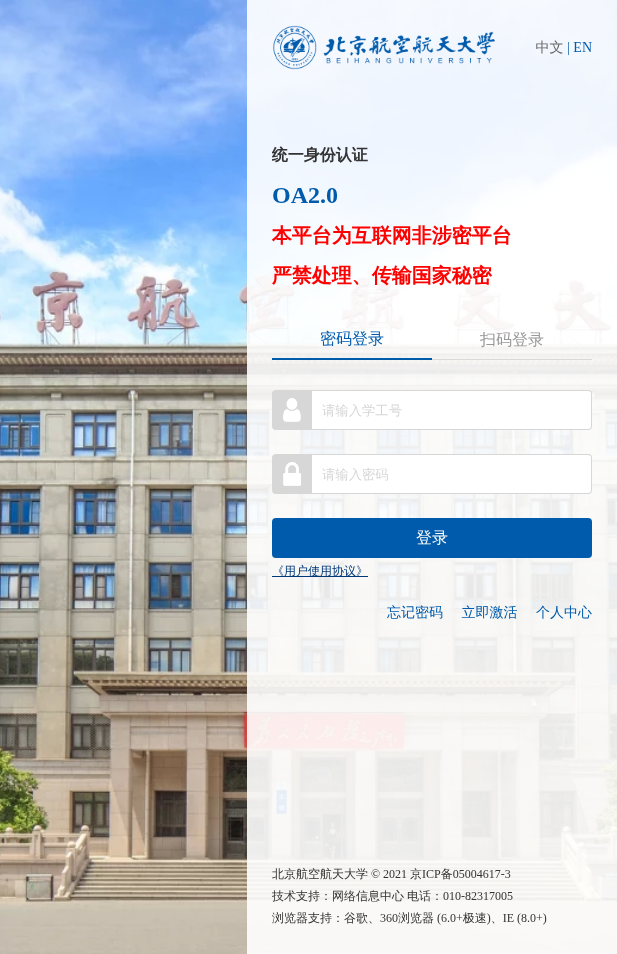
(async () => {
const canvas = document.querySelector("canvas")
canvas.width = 617
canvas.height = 954
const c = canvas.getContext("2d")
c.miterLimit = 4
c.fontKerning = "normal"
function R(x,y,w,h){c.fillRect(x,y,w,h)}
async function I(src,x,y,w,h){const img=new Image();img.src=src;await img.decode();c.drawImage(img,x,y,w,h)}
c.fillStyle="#fff"
R(0,0,617,954)
await I("1.png",0,0,617,954)
})()
